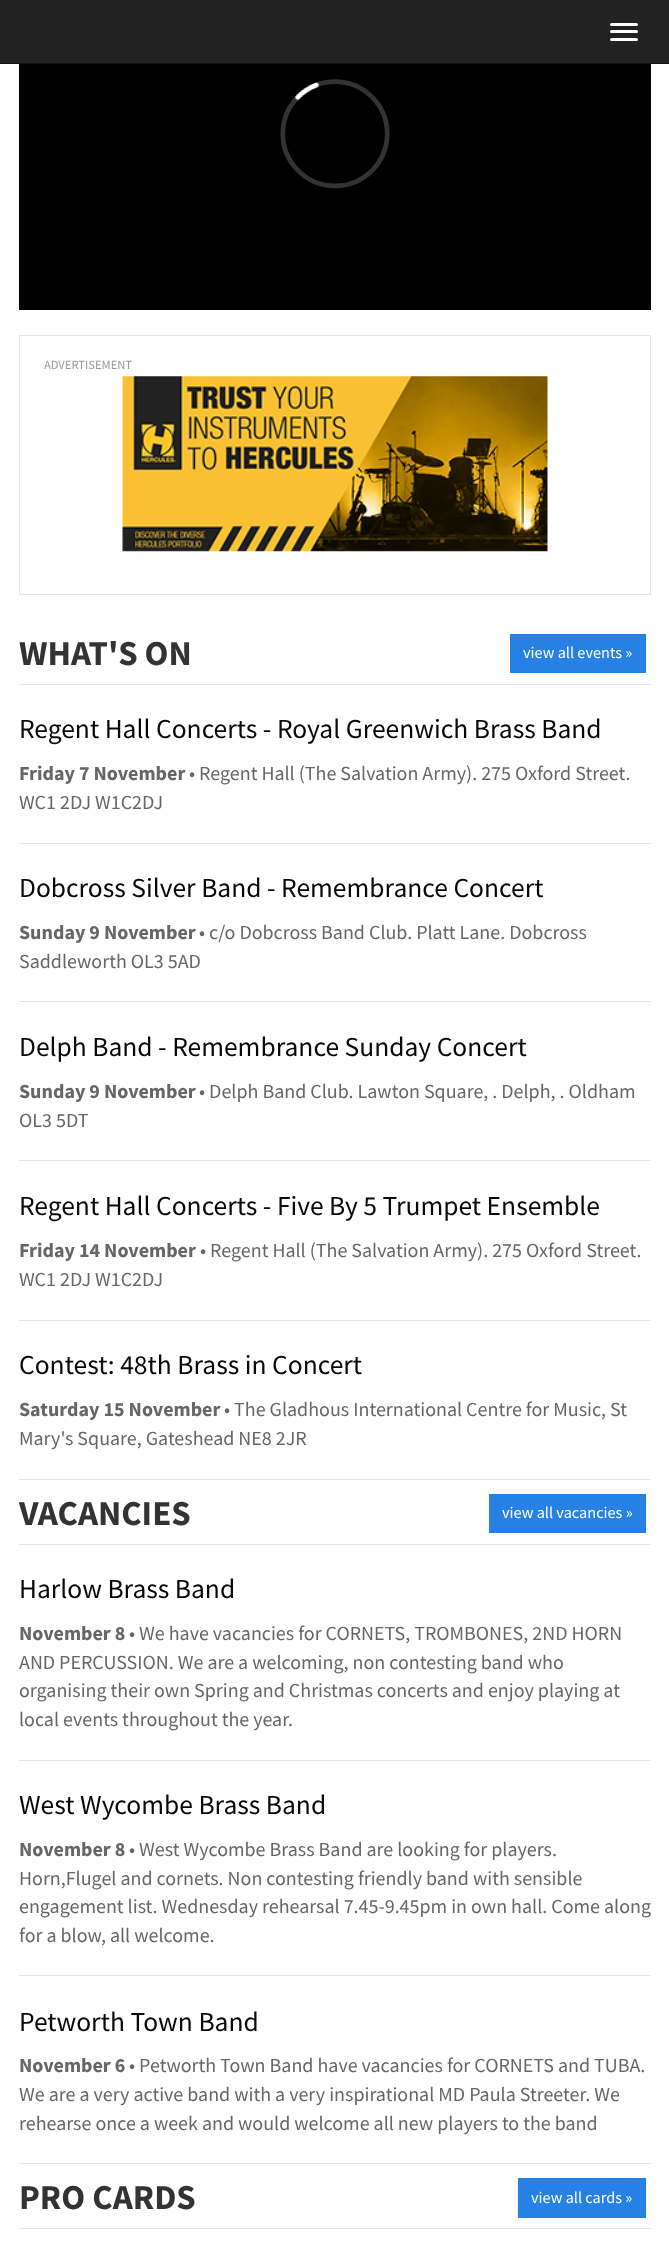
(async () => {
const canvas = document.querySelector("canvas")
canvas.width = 669
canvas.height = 2255
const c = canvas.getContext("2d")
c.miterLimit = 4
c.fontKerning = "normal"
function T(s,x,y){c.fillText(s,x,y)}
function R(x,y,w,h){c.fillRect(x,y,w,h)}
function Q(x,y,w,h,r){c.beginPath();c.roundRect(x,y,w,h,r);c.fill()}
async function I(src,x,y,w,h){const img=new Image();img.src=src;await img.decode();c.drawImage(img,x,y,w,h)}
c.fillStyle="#fff"
R(0,0,669,2255)
c.fillStyle="#222"
R(0,0,669,63)
c.fillStyle="#121212"
R(0,63,669,1)
c.fillStyle="#fff"
Q(610,23,28,3,1.5)
Q(610,30,28,3,1.5)
Q(610,38,28,3,1.5)
await I("1.png",19,64,632,246)
c.strokeStyle="#e6e6e6"
c.strokeRect(19.5,335.5,631,259)
c.font="12.5px Source Sans Pro"
c.fillStyle="#999"
T("ADVERTISEMENT",44,369)
await I("2.png",122,376,426,176)
c.fillStyle="#e6e6e6"
R(19,684,632,1)
c.font="bold 35px Source Sans Pro"
c.fillStyle="#333"
T("WHAT'S ON",19,665)
c.fillStyle="#2780e3"
R(510,634,136,39)
c.font="16.25px Source Sans Pro"
c.fillStyle="#fff"
T("view all events »",523,658)
c.font="27.5px Source Sans Pro"
c.fillStyle="#080808"
T("Regent Hall Concerts - Royal Greenwich Brass Band",19,738)
c.font="bold 20px Source Sans Pro"
c.fillStyle="#666"
T("Friday 7 November",19,780)
c.font="20px Source Sans Pro"
T("• Regent Hall (The Salvation Army). 275 Oxford Street.",189,780)
T("WC1 2DJ W1C2DJ",19,809)
c.fillStyle="#e6e6e6"
R(19,843,632,1)
c.font="27.5px Source Sans Pro"
c.fillStyle="#080808"
T("Dobcross Silver Band - Remembrance Concert",19,897)
c.font="bold 20px Source Sans Pro"
c.fillStyle="#666"
T("Sunday 9 November",19,939)
c.font="20px Source Sans Pro"
T("• c/o Dobcross Band Club. Platt Lane. Dobcross",199,939)
T("Saddleworth OL3 5AD",19,968)
c.fillStyle="#e6e6e6"
R(19,1001,632,1)
c.font="27.5px Source Sans Pro"
c.fillStyle="#080808"
T("Delph Band - Remembrance Sunday Concert",19,1056)
c.font="bold 20px Source Sans Pro"
c.fillStyle="#666"
T("Sunday 9 November",19,1098)
c.font="20px Source Sans Pro"
T("• Delph Band Club. Lawton Square, . Delph, . Oldham",199,1098)
T("OL3 5DT",19,1127)
c.fillStyle="#e6e6e6"
R(19,1160,632,1)
c.font="27.5px Source Sans Pro"
c.fillStyle="#080808"
T("Regent Hall Concerts - Five By 5 Trumpet Ensemble",19,1215)
c.font="bold 20px Source Sans Pro"
c.fillStyle="#666"
T("Friday 14 November",19,1257)
c.font="20px Source Sans Pro"
T("• Regent Hall (The Salvation Army). 275 Oxford Street.",200,1257)
T("WC1 2DJ W1C2DJ",19,1286)
c.fillStyle="#e6e6e6"
R(19,1320,632,1)
c.font="27.5px Source Sans Pro"
c.fillStyle="#080808"
T("Contest: 48th Brass in Concert",19,1374)
c.font="bold 20px Source Sans Pro"
c.fillStyle="#666"
T("Saturday 15 November",19,1416)
c.font="20px Source Sans Pro"
T("• The Gladhous International Centre for Music, St",224,1416)
T("Mary's Square, Gateshead NE8 2JR",19,1445)
c.fillStyle="#e6e6e6"
R(19,1479,632,1)
R(19,1544,632,1)
c.font="bold 35px Source Sans Pro"
c.fillStyle="#333"
T("VACANCIES",19,1525)
c.fillStyle="#2780e3"
R(489,1494,157,39)
c.font="16.25px Source Sans Pro"
c.fillStyle="#fff"
T("view all vacancies »",502,1518)
c.font="27.5px Source Sans Pro"
c.fillStyle="#080808"
T("Harlow Brass Band",19,1598)
c.font="bold 20px Source Sans Pro"
c.fillStyle="#666"
T("November 8",19,1640)
c.font="20px Source Sans Pro"
T("• We have vacancies for CORNETS, TROMBONES, 2ND HORN",129,1640)
T("AND PERCUSSION. We are a welcoming, non contesting band who",19,1669)
T("organising their own Spring and Christmas concerts and enjoy playing at",19,1697)
T("local events throughout the year.",19,1726)
c.fillStyle="#e6e6e6"
R(19,1760,632,1)
c.font="27.5px Source Sans Pro"
c.fillStyle="#080808"
T("West Wycombe Brass Band",19,1814)
c.font="bold 20px Source Sans Pro"
c.fillStyle="#666"
T("November 8",19,1856)
c.font="20px Source Sans Pro"
T("• West Wycombe Brass Band are looking for players.",129,1856)
T("Horn,Flugel and cornets. Non contesting friendly band with sensible",19,1885)
T("engagement list. Wednesday rehearsal 7.45-9.45pm in own hall. Come along",19,1913)
T("for a blow, all welcome.",19,1942)
c.fillStyle="#e6e6e6"
R(19,1975,632,1)
c.font="27.5px Source Sans Pro"
c.fillStyle="#080808"
T("Petworth Town Band",19,2031)
c.font="bold 20px Source Sans Pro"
c.fillStyle="#666"
T("November 6",19,2072)
c.font="20px Source Sans Pro"
T("• Petworth Town Band have vacancies for CORNETS and TUBA.",129,2072)
T("We are a very active band with a very inspirational MD Paula Streeter. We",19,2101)
T("rehearse once a week and would welcome all new players to the band",19,2130)
c.fillStyle="#e6e6e6"
R(19,2163,632,1)
R(19,2228,632,1)
c.font="bold 35px Source Sans Pro"
c.fillStyle="#333"
T("PRO CARDS",19,2209)
c.fillStyle="#2780e3"
R(518,2178,128,40)
c.font="16.25px Source Sans Pro"
c.fillStyle="#fff"
T("view all cards »",531,2203)
})()
